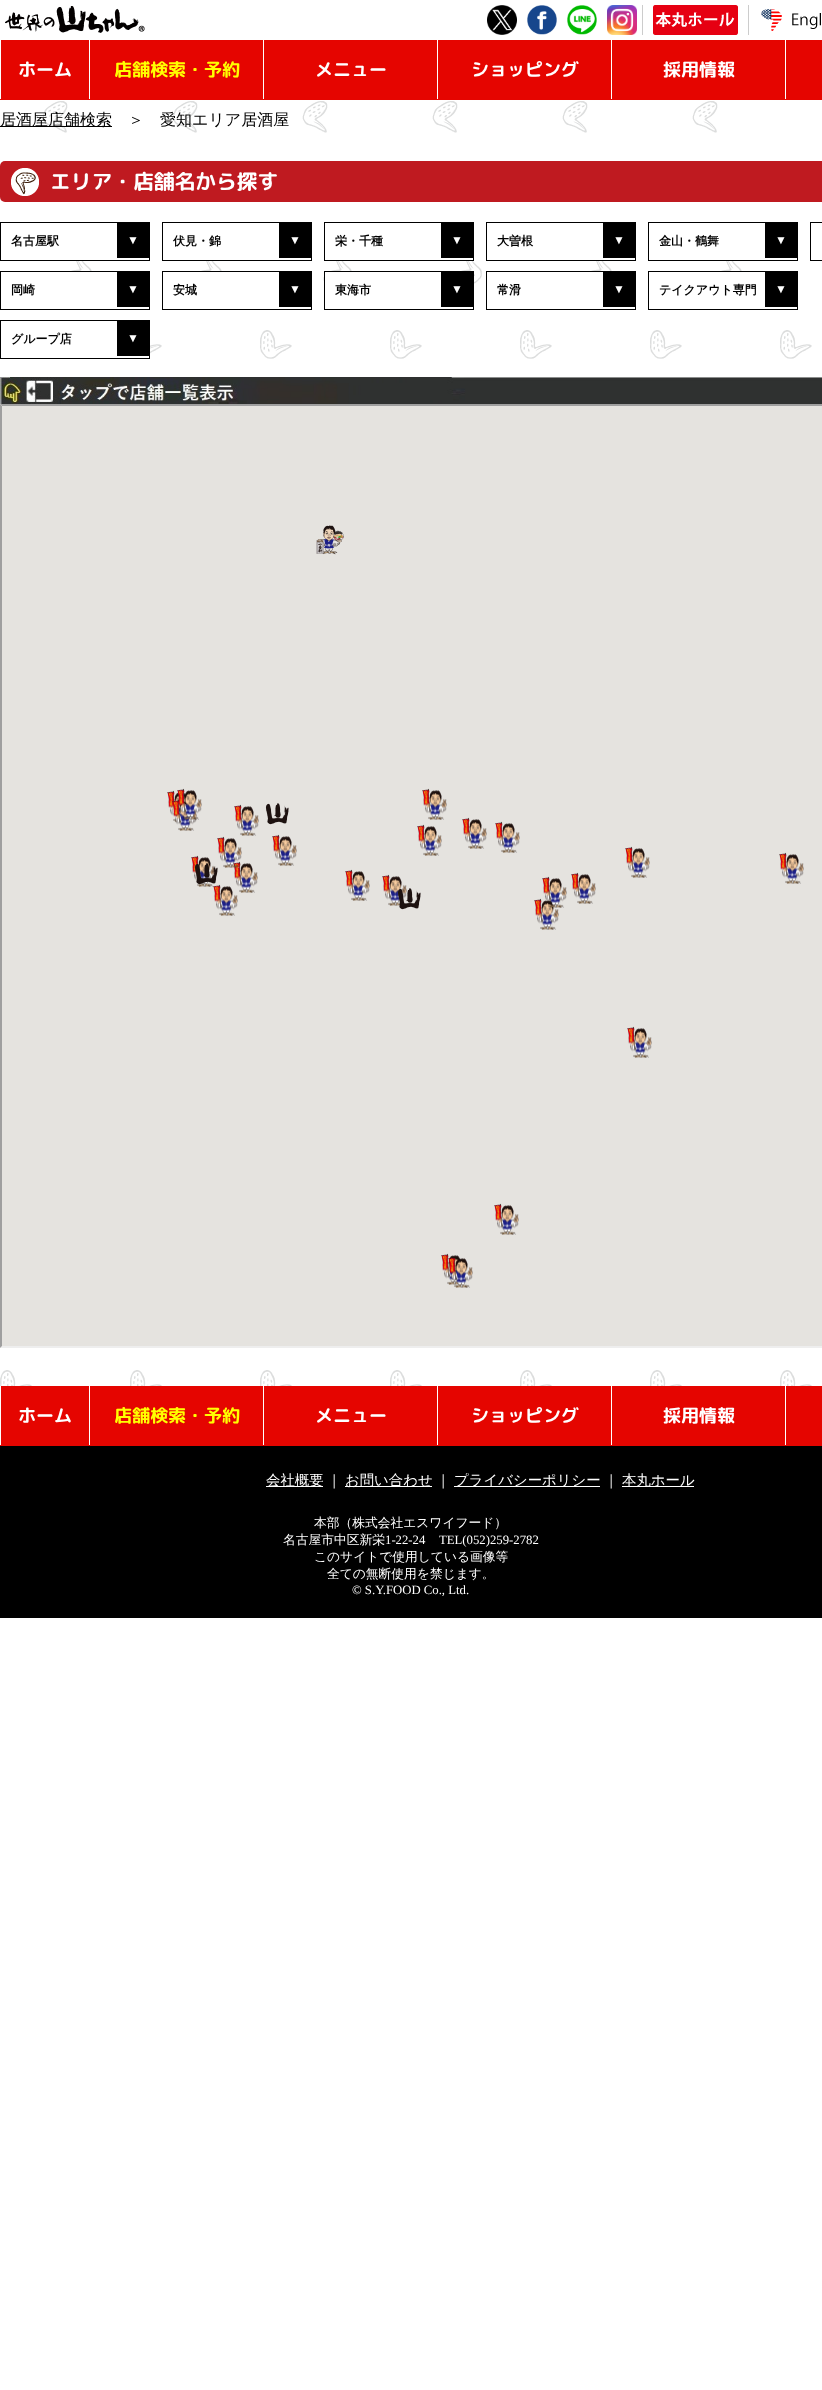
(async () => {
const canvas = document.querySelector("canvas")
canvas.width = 822
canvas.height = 2390
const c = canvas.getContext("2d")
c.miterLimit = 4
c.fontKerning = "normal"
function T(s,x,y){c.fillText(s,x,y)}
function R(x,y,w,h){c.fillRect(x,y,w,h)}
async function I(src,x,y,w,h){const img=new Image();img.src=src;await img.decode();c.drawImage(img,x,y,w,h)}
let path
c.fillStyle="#fff"
R(0,0,822,2390)
await I("1.png",5,6,140,27)
await I("2.png",487,5,30,30)
await I("3.png",527,5,30,30)
await I("4.png",567,5,30,30)
await I("5.png",607,5,30,30)
c.fillStyle="#ccc"
R(642,5,1,30)
await I("6.png",653,5,85,30)
R(748,5,1,30)
await I("7.png",761,9,60,22)
c.fillStyle="#e50500"
R(0,40,822,60)
c.fillStyle="#fff"
R(0,40,1,59)
c.font="bold 18px 'Rounded Mplus 1c Bold'"
T("ホーム",18,76)
R(89,40,1,59)
c.fillStyle="#ff0"
T("店舗検索・予約",114,76)
c.fillStyle="#fff"
R(263,40,1,59)
T("メニュー",315,76)
R(437,40,1,59)
T("ショッピング",471,76)
R(611,40,1,59)
T("採用情報",663,76)
R(785,40,1,59)
await I("8.png",0,101,812,1285)
c.fillStyle="#000"
R(0,126,112,1)
c.font="500 16px WenQuanYi Zen Hei"
T("居酒屋店舗検索",0,125)
T("＞　愛知エリア居酒屋",128,125)
c.fillStyle="#bf1a20"
c.beginPath()
c.roundRect(0,161,822,41,[5,0,0,5])
c.fill()
await I("9.png",11,168,28,28)
c.font="bold 20.75px 'Rounded Mplus 1c Bold'"
c.fillStyle="#fff"
T("エリア・店舗名から探す",50,189)
R(75,253,8,7)
c.strokeStyle="#000"
c.strokeRect(.5,222.5,149,38)
c.font="bold 12px WenQuanYi Zen Hei"
c.fillStyle="#000"
T("名古屋駅",11,245)
R(117,223,32,35)
c.font="bold 12px Liberation Serif"
c.fillStyle="#fff"
T("▼",127,244)
R(205,253,8,7)
c.strokeRect(162.5,222.5,149,38)
c.font="bold 12px WenQuanYi Zen Hei"
c.fillStyle="#000"
T("伏見・錦",173,245)
R(279,223,32,35)
c.font="bold 12px Liberation Serif"
c.fillStyle="#fff"
T("▼",289,244)
R(335,253,138,7)
c.strokeRect(324.5,222.5,149,38)
c.font="bold 12px WenQuanYi Zen Hei"
c.fillStyle="#000"
T("栄・千種",335,245)
R(441,223,32,35)
c.font="bold 12px Liberation Serif"
c.fillStyle="#fff"
T("▼",451,244)
R(595,253,8,7)
c.strokeRect(486.5,222.5,149,38)
c.font="bold 12px WenQuanYi Zen Hei"
c.fillStyle="#000"
T("大曽根",497,245)
R(603,223,32,35)
c.font="bold 12px Liberation Serif"
c.fillStyle="#fff"
T("▼",613,244)
R(725,253,8,7)
c.strokeRect(648.5,222.5,149,38)
c.font="bold 12px WenQuanYi Zen Hei"
c.fillStyle="#000"
T("金山・鶴舞",659,245)
R(765,223,32,35)
c.font="bold 12px Liberation Serif"
c.fillStyle="#fff"
T("▼",775,244)
c.strokeRect(810.5,222.5,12,38)
R(63,272,29,14)
c.strokeRect(.5,271.5,149,38)
c.font="bold 12px WenQuanYi Zen Hei"
c.fillStyle="#000"
T("岡崎",11,294)
R(117,272,32,35)
c.font="bold 12px Liberation Serif"
c.fillStyle="#fff"
T("▼",127,293)
R(193,272,29,14)
c.strokeRect(162.5,271.5,149,38)
c.font="bold 12px WenQuanYi Zen Hei"
c.fillStyle="#000"
T("安城",173,294)
R(279,272,32,35)
c.font="bold 12px Liberation Serif"
c.fillStyle="#fff"
T("▼",289,293)
R(325,272,148,14)
c.strokeRect(324.5,271.5,149,38)
c.font="bold 12px WenQuanYi Zen Hei"
c.fillStyle="#000"
T("東海市",335,294)
R(441,272,32,35)
c.font="bold 12px Liberation Serif"
c.fillStyle="#fff"
T("▼",451,293)
R(583,272,29,14)
c.strokeRect(486.5,271.5,149,38)
c.font="bold 12px WenQuanYi Zen Hei"
c.fillStyle="#000"
T("常滑",497,294)
R(603,272,32,35)
c.font="bold 12px Liberation Serif"
c.fillStyle="#fff"
T("▼",613,293)
R(713,272,29,14)
c.strokeRect(648.5,271.5,149,38)
c.font="bold 12px WenQuanYi Zen Hei"
c.fillStyle="#000"
T("テイクアウト専門",659,294)
R(765,272,32,35)
c.font="bold 12px Liberation Serif"
c.fillStyle="#fff"
T("▼",775,293)
R(1,330,148,28)
c.strokeRect(.5,320.5,149,38)
c.font="bold 12px WenQuanYi Zen Hei"
c.fillStyle="#000"
T("グループ店",11,343)
R(117,321,32,35)
c.font="bold 12px Liberation Serif"
c.fillStyle="#fff"
T("▼",127,342)
await I("10.png",0,377,822,27)
c.fillStyle="#9f9f9f"
path = new Path2D("M0 404h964l-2 2h-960z")
c.fill(path)
c.fillStyle="#eee"
path = new Path2D("M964 1348h-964l2-2h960z")
c.fill(path)
c.fillStyle="#9f9f9f"
path = new Path2D("M0 1348v-944l2 2v940z")
c.fill(path)
await I("11.png",2,406,820,940)
c.fillStyle="#e50500"
R(0,1386,822,60)
c.fillStyle="#fff"
R(0,1386,1,59)
c.font="bold 18px 'Rounded Mplus 1c Bold'"
T("ホーム",18,1422)
R(89,1386,1,59)
c.fillStyle="#ff0"
T("店舗検索・予約",114,1422)
c.fillStyle="#fff"
R(263,1386,1,59)
T("メニュー",315,1422)
R(437,1386,1,59)
T("ショッピング",471,1422)
R(611,1386,1,59)
T("採用情報",663,1422)
R(785,1386,1,59)
c.fillStyle="#000"
R(0,1446,822,172)
c.fillStyle="#fff"
R(266,1486,57,1)
c.font="500 14.4px WenQuanYi Zen Hei"
T("会社概要",266,1485)
T("｜",327,1485)
R(345,1486,87,1)
T("お問い合わせ",345,1485)
T("｜",436,1485)
R(454,1486,146,1)
T("プライバシーポリシー",454,1485)
T("｜",604,1485)
R(622,1486,72,1)
T("本丸ホール",622,1485)
c.font="500 12.75px WenQuanYi Zen Hei"
T("本部（株式会社エスワイフード）",314,1527)
T("名古屋市中区新栄",283,1544)
c.font="12.75px Liberation Serif"
T("1-22-24",385,1544)
T("TEL(052)259-2782",439,1544)
c.font="500 12.75px WenQuanYi Zen Hei"
T("このサイトで使用している画像等",314,1561)
T("全ての無断使用を禁じます。",327,1578)
c.font="12.75px Liberation Serif"
T("© S.Y.FOOD Co., Ltd.",352,1594)
})()
